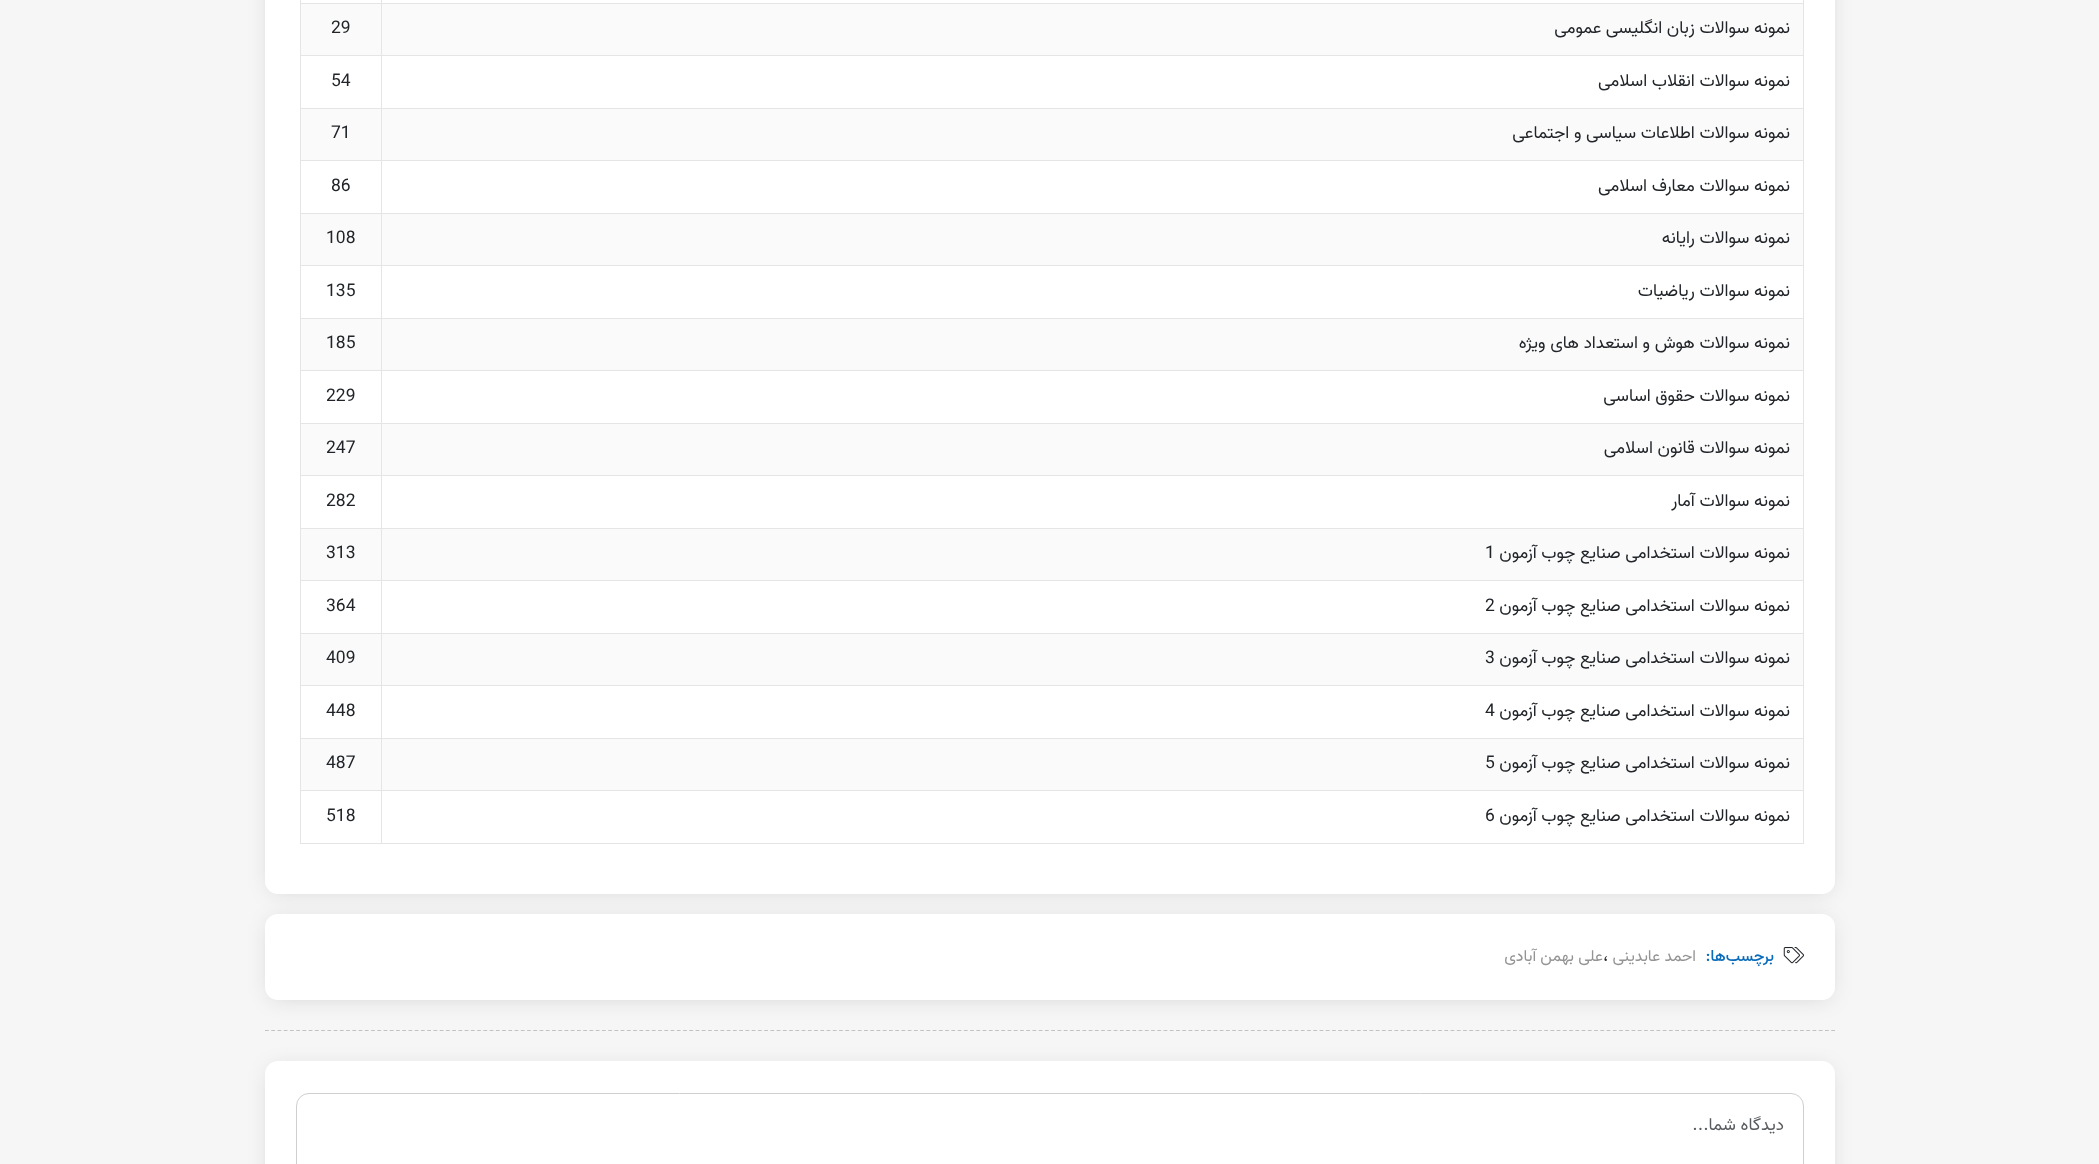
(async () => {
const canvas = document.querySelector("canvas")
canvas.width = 2099
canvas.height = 1164
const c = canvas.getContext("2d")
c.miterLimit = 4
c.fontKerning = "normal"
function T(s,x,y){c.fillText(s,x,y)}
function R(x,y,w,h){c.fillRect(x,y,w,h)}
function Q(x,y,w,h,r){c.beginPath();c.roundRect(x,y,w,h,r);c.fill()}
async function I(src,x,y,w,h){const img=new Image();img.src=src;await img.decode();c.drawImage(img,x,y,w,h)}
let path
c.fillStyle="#f6f6f6"
R(0,0,2099,1164)
c.fillStyle="#11111126"
c.filter="blur(11px)"
c.beginPath()
c.roundRect(270,-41,1560,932,8)
c.fill()
c.filter="none"
c.fillStyle="#fff"
Q(265,-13,1570,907,13)
c.fillStyle="#e5e5e5"
R(381,3,1423,1)
R(381,55,1423,1)
R(381,108,1423,1)
R(381,160,1423,1)
R(381,213,1423,1)
R(381,265,1423,1)
R(381,318,1423,1)
R(381,370,1423,1)
R(381,423,1423,1)
R(381,475,1423,1)
R(381,528,1423,1)
R(381,580,1423,1)
R(381,633,1423,1)
R(381,685,1423,1)
R(381,738,1423,1)
R(381,790,1423,1)
R(1803,790,1,54)
R(381,843,1423,1)
R(381,790,1,54)
R(300,790,83,1)
R(381,738,1,53)
R(300,738,83,1)
R(381,685,1,54)
R(300,685,83,1)
R(381,633,1,53)
R(300,633,83,1)
R(381,580,1,54)
R(300,580,83,1)
R(381,528,1,53)
R(300,528,83,1)
R(381,475,1,54)
R(300,475,83,1)
R(381,423,1,53)
R(300,423,83,1)
R(381,370,1,54)
R(300,370,83,1)
R(381,318,1,53)
R(300,318,83,1)
R(381,265,1,54)
R(300,265,83,1)
R(381,213,1,53)
R(300,213,83,1)
R(381,160,1,54)
R(300,160,83,1)
R(381,108,1,53)
R(300,108,83,1)
R(381,55,1,54)
R(300,55,83,1)
R(381,3,1,53)
R(300,3,83,1)
R(381,0,1,4)
c.fillStyle="#fafafa"
R(382,4,1421,51)
c.fillStyle="#e5e5e5"
R(1803,738,1,53)
R(1803,685,1,54)
R(1803,633,1,53)
R(1803,580,1,54)
R(1803,528,1,53)
R(1803,475,1,54)
R(1803,423,1,53)
R(1803,370,1,54)
R(1803,318,1,53)
R(1803,265,1,54)
R(1803,213,1,53)
R(1803,160,1,54)
R(1803,108,1,53)
R(1803,55,1,54)
R(1803,0,1,56)
c.direction="rtl"
c.font="17.5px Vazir"
c.fillStyle="#212529"
T("نمونه سوالات زبان انگلیسی عمومی",1790,33)
c.fillStyle="#fafafa"
R(301,4,80,51)
c.fillStyle="#e5e5e5"
R(300,843,83,1)
R(300,790,1,54)
R(300,738,1,53)
R(300,685,1,54)
R(300,633,1,53)
R(300,580,1,54)
R(300,528,1,53)
R(300,475,1,54)
R(300,423,1,53)
R(300,370,1,54)
R(300,318,1,53)
R(300,265,1,54)
R(300,213,1,53)
R(300,160,1,54)
R(300,108,1,53)
R(300,55,1,54)
R(300,0,1,56)
c.direction="ltr"
c.fillStyle="#212529"
T("29",331,33)
c.direction="rtl"
T("نمونه سوالات انقلاب اسلامی",1790,86)
c.direction="ltr"
T("54",331,86)
c.fillStyle="#fafafa"
R(382,109,1421,51)
c.direction="rtl"
c.fillStyle="#212529"
T("نمونه سوالات اطلاعات سیاسی و اجتماعی",1790,138)
c.fillStyle="#fafafa"
R(301,109,80,51)
c.direction="ltr"
c.fillStyle="#212529"
T("71",331,138)
c.direction="rtl"
T("نمونه سوالات معارف اسلامی",1790,191)
c.direction="ltr"
T("86",331,191)
c.fillStyle="#fafafa"
R(382,214,1421,51)
c.direction="rtl"
c.fillStyle="#212529"
T("نمونه سوالات رایانه",1790,243)
c.fillStyle="#fafafa"
R(301,214,80,51)
c.direction="ltr"
c.fillStyle="#212529"
T("108",326,243)
c.direction="rtl"
T("نمونه سوالات ریاضیات",1790,296)
c.direction="ltr"
T("135",326,296)
c.fillStyle="#fafafa"
R(382,319,1421,51)
c.direction="rtl"
c.fillStyle="#212529"
T("نمونه سوالات هوش و استعداد های ویژه",1790,348)
c.fillStyle="#fafafa"
R(301,319,80,51)
c.direction="ltr"
c.fillStyle="#212529"
T("185",326,348)
c.direction="rtl"
T("نمونه سوالات حقوق اساسی",1790,401)
c.direction="ltr"
T("229",326,401)
c.fillStyle="#fafafa"
R(382,424,1421,51)
c.direction="rtl"
c.fillStyle="#212529"
T("نمونه سوالات قانون اسلامی",1790,453)
c.fillStyle="#fafafa"
R(301,424,80,51)
c.direction="ltr"
c.fillStyle="#212529"
T("247",326,453)
c.direction="rtl"
T("نمونه سوالات آمار",1790,506)
c.direction="ltr"
T("282",326,506)
c.fillStyle="#fafafa"
R(382,529,1421,51)
c.direction="rtl"
c.fillStyle="#212529"
T("نمونه سوالات استخدامی صنایع چوب آزمون",1790,558)
c.direction="ltr"
T("1",1485,558)
c.fillStyle="#fafafa"
R(301,529,80,51)
c.fillStyle="#212529"
T("313",326,558)
c.direction="rtl"
T("نمونه سوالات استخدامی صنایع چوب آزمون",1790,611)
c.direction="ltr"
T("2",1485,611)
T("364",326,611)
c.fillStyle="#fafafa"
R(382,634,1421,51)
c.direction="rtl"
c.fillStyle="#212529"
T("نمونه سوالات استخدامی صنایع چوب آزمون",1790,663)
c.direction="ltr"
T("3",1485,663)
c.fillStyle="#fafafa"
R(301,634,80,51)
c.fillStyle="#212529"
T("409",326,663)
c.direction="rtl"
T("نمونه سوالات استخدامی صنایع چوب آزمون",1790,716)
c.direction="ltr"
T("4",1485,716)
T("448",326,716)
c.fillStyle="#fafafa"
R(382,739,1421,51)
c.direction="rtl"
c.fillStyle="#212529"
T("نمونه سوالات استخدامی صنایع چوب آزمون",1790,768)
c.direction="ltr"
T("5",1485,768)
c.fillStyle="#fafafa"
R(301,739,80,51)
c.fillStyle="#212529"
T("487",326,768)
c.direction="rtl"
T("نمونه سوالات استخدامی صنایع چوب آزمون",1790,821)
c.direction="ltr"
T("6",1485,821)
T("518",326,821)
c.fillStyle="#11111126"
c.filter="blur(11px)"
c.beginPath()
c.roundRect(270,921,1560,77,8)
c.fill()
c.filter="none"
c.fillStyle="#fff"
Q(265,914,1570,86,13)
await I("1.png",1783,947,21,17)
c.direction="rtl"
c.font="500 16.25px Vazir"
c.fillStyle="#0a6cbb"
T("برچسب‌ها:",1774,961)
c.font="16.25px Vazir"
c.fillStyle="#949494"
T("احمد عابدینی",1696,961)
c.direction="ltr"
c.fillStyle="#212529"
T("،",1603,961)
c.direction="rtl"
c.fillStyle="#949494"
T("علی بهمن آبادی",1603,961)
path = new Path2D("M265 1030.5h1570")
c.strokeStyle="#c1c2c3"
c.lineWidth=1.2
c.setLineDash([3.75,2.49])
c.stroke(path)
c.fillStyle="#11111126"
c.filter="blur(11px)"
c.beginPath()
c.roundRect(270,1069,1560,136,8)
c.fill()
c.filter="none"
c.fillStyle="#fff"
Q(265,1061,1570,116,13)
c.beginPath()
c.roundRect(296.5,1093.5,1507,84,12.5)
c.strokeStyle="#cfcfcf"
c.lineWidth=1
c.setLineDash([])
c.stroke()
c.font="17.5px Vazir"
c.fillStyle="#595c5f"
T("دیدگاه شما...",1784,1130)
})()
